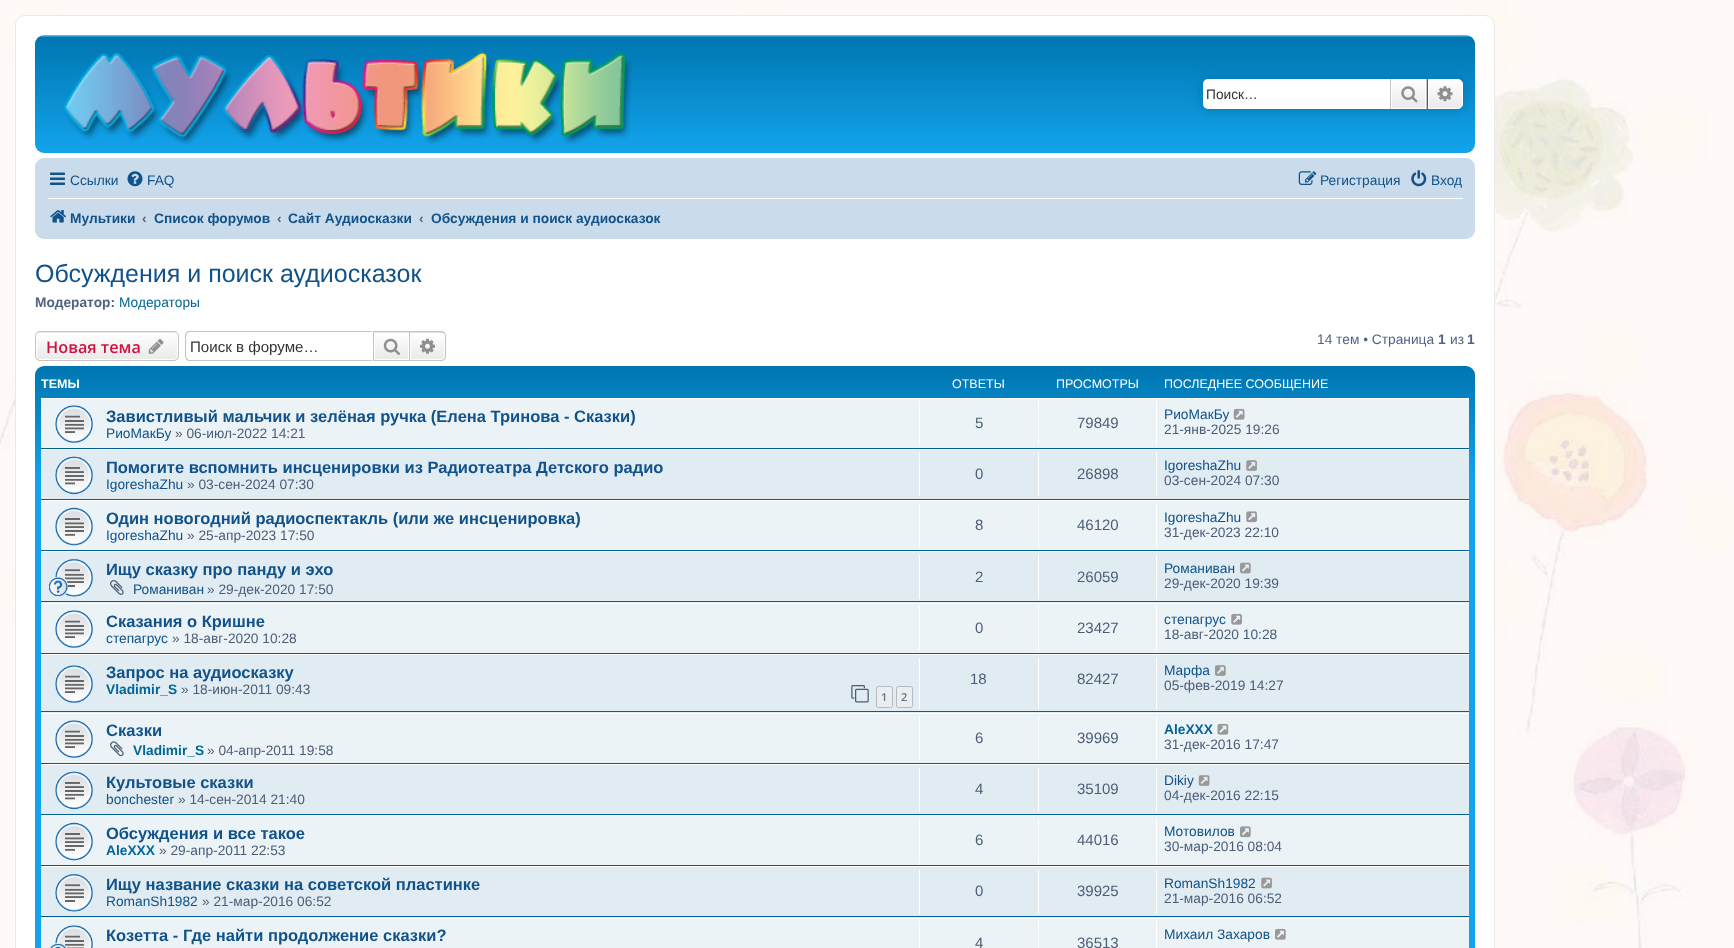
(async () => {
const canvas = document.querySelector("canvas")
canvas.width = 1734
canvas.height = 948
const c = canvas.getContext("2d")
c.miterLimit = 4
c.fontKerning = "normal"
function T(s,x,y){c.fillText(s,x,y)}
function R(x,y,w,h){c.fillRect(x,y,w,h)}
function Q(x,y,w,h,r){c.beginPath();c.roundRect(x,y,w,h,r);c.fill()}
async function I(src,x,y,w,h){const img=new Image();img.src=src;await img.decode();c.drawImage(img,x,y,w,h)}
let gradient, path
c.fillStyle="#fff"
R(0,0,1734,948)
await I("1.png",0,0,1734,948)
c.beginPath()
c.roundRect(15.5,15.5,1479,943,9.5)
c.fill()
c.strokeStyle="#e6e9ed"
c.stroke()
gradient = c.createLinearGradient(755,35,755,153)
gradient.addColorStop(0,"#6aceff")
gradient.addColorStop(.02,"#0076b1")
gradient.addColorStop(.98,"#12a3eb")
gradient.addColorStop(1,"#12a3eb")
c.fillStyle = gradient
Q(35,35,1440,118,9)
await I("2.png",63,52,569,93)
c.fillStyle="#0075b0"
c.filter="blur(6px)"
c.beginPath()
c.roundRect(1203,79,260,30,5)
c.fill()
c.filter="none"
c.fillStyle="#fff"
c.beginPath()
c.roundRect(1203,79,187,30,[5,0,0,5])
c.fill()
c.font="13.75px Liberation Sans"
c.fillStyle="#333"
T("Поиск…",1206,99)
gradient = c.createLinearGradient(1409,79,1409,109)
gradient.addColorStop(0,"#fff")
gradient.addColorStop(1,"#e9e9e9")
c.fillStyle = gradient
R(1392,80,33,28)
c.strokeStyle="#fff"
c.strokeRect(1391.5,79.5,34,29)
c.fillStyle="#c7c3bf"
R(1426,79,1,30)
R(1390,79,1,30)
await I("3.png",1401,86,17,17)
gradient = c.createLinearGradient(1445,79,1445,109)
gradient.addColorStop(0,"#fff")
gradient.addColorStop(1,"#e9e9e9")
c.fillStyle = gradient
c.beginPath()
c.roundRect(1428.5,79.5,34,29,[0,4.5,4.5,0])
c.fill()
c.stroke()
await I("4.png",1437,86,16,16)
c.fillStyle="#cadceb"
Q(35,158,1440,81,9)
await I("5.png",50,172,15,13)
c.fillStyle="#105289"
T("Ссылки",70,185)
await I("6.png",127,171,16,16)
T("FAQ",147,185)
await I("7.png",1298,171,19,14)
T("Регистрация",1320,185)
await I("8.png",1411,170,16,17)
T("Вход",1431,185)
c.fillStyle="#fff"
R(48,198,1415,1)
await I("9.png",50,210,16,13)
c.font="bold 13.75px Liberation Sans"
c.fillStyle="#105289"
T("Мультики",70,223)
c.fillStyle="#536482"
T("‹",142,223)
c.fillStyle="#105289"
T("Список форумов",154,223)
c.fillStyle="#536482"
T("‹",277,223)
c.fillStyle="#105289"
T("Сайт Аудиосказки",288,223)
c.fillStyle="#536482"
T("‹",419,223)
c.fillStyle="#105289"
T("Обсуждения и поиск аудиосказок",431,223)
c.font="25px Liberation Sans"
T("Обсуждения и поиск аудиосказок",35,282)
c.font="bold 13.75px Liberation Sans"
c.fillStyle="#536482"
T("Модератор:",35,307)
c.font="13.75px Liberation Sans"
c.fillStyle="#069"
T("Модераторы",119,307)
c.save()
c.beginPath()
c.roundRect(35,331,144,30,5)
c.clip()
gradient = c.createLinearGradient(107,305,107,333)
gradient.addColorStop(0,"#fff")
gradient.addColorStop(1,"#e9e9e9")
c.fillStyle = gradient
R(35,331,144,2)
gradient = c.createLinearGradient(107,333,107,360)
gradient.addColorStop(0,"#fff")
gradient.addColorStop(1,"#e9e9e9")
c.fillStyle = gradient
R(35,333,144,27)
c.restore()
c.beginPath()
c.roundRect(36.5,333.5,141,26,3.5)
c.stroke()
c.beginPath()
c.roundRect(35.5,331.5,143,29,4.5)
c.strokeStyle="#c7c3bf"
c.stroke()
c.font="600 16.25px Open Sans"
c.fillStyle="#d31141"
T("Новая тема",46,353)
await I("10.png",148,339,16,15)
c.fillStyle="#c7c3bf"
path = new Path2D("M190 331h182v30h-182c-3 0-5-2-5-5v-20c0-3 2-5 5-5zm0 1h182v28h-182c-2 0-4-2-4-4v-20c0-2 2-4 4-4z")
c.fill(path,"evenodd")
c.save()
c.beginPath()
c.rect(190,338,174,17)
c.clip()
c.font="15.1px Liberation Sans"
c.fillStyle="#333"
T("Поиск в форуме…",190,352)
c.restore()
c.fillStyle="#e9e9e9"
R(374,332,35,1)
gradient = c.createLinearGradient(391,333,391,360)
gradient.addColorStop(0,"#fff")
gradient.addColorStop(1,"#e9e9e9")
c.fillStyle = gradient
R(375,336,33,23)
c.strokeRect(373.5,331.5,36,29)
await I("11.png",383,338,17,17)
gradient = c.createLinearGradient(428,333,428,360)
gradient.addColorStop(0,"#fff")
gradient.addColorStop(1,"#e9e9e9")
c.fillStyle = gradient
c.beginPath()
c.roundRect(410.5,333.5,34,26,[0,3.5,3.5,0])
c.fill()
c.strokeStyle="#fff"
c.stroke()
c.fillStyle="#c7c3bf"
path = new Path2D("M410 331h31c3 0 5 2.5 5 5v20c0 3-2 5-5 5h-31zm0 1.5h31c2.5 0 4 1.5 4 3.5v20c0 2.5-1.5 4-4 4h-31z")
c.fill(path,"evenodd")
await I("12.png",420,338,15,16)
c.font="13.75px Liberation Sans"
c.fillStyle="#536482"
T("14 тем • Страница",1317,344)
c.font="bold 13.75px Liberation Sans"
T("1",1438,344)
c.font="13.75px Liberation Sans"
T("из",1450,344)
c.font="bold 13.75px Liberation Sans"
T("1",1467,344)
gradient = c.createLinearGradient(755,366,755,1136)
gradient.addColorStop(0,"#6aceff")
gradient.addColorStop(0,"#0076b1")
gradient.addColorStop(.15,"#12a3eb")
gradient.addColorStop(1,"#12a3eb")
c.fillStyle = gradient
Q(35,366,1440,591,9)
c.font="bold 12.5px Liberation Sans"
c.fillStyle="#fff"
T("ТЕМЫ",41,388)
c.font="12.5px Liberation Sans"
T("ОТВЕТЫ",952,388)
T("ПРОСМОТРЫ",1056,388)
T("ПОСЛЕДНЕЕ СООБЩЕНИЕ",1164,388)
c.fillStyle="#ecf3f7"
R(41,399,1428,49)
c.fillStyle="#fff"
R(41,398,1428,1)
c.fillStyle="#00608f"
R(41,448,1428,1)
await I("13.png",55,405,38,38)
c.font="bold 16.5px Liberation Sans"
c.fillStyle="#105289"
T("Завистливый мальчик и зелёная ручка (Елена Тринова - Сказки)",106,422)
c.font="13.75px Liberation Sans"
T("РиоМакБу",106,438)
c.fillStyle="#4c5d77"
T("» 06-июл-2022 14:21",175,438)
c.fillStyle="#fff"
R(919,401,1,44)
c.font="15px Liberation Sans"
c.fillStyle="#4c5d77"
T("5",975,428)
c.fillStyle="#fff"
R(1038,401,1,44)
c.fillStyle="#4c5d77"
T("79849",1077,428)
c.fillStyle="#fff"
R(1156,401,1,44)
c.font="13.75px Liberation Sans"
c.fillStyle="#105289"
T("РиоМакБу",1164,419)
await I("14.png",1233,408,12,12)
c.fillStyle="#4c5d77"
T("21-янв-2025 19:26",1164,434)
c.fillStyle="#e1ebf2"
R(41,450,1428,49)
c.fillStyle="#fff"
R(41,449,1428,1)
c.fillStyle="#00608f"
R(41,499,1428,1)
await I("15.png",55,456,38,39)
c.font="bold 16.5px Liberation Sans"
c.fillStyle="#105289"
T("Помогите вспомнить инсценировки из Радиотеатра Детского радио",106,473)
c.font="13.75px Liberation Sans"
T("IgoreshaZhu",106,489)
c.fillStyle="#4c5d77"
T("» 03-сен-2024 07:30",187,489)
c.fillStyle="#fff"
R(919,453,1,43)
c.font="15px Liberation Sans"
c.fillStyle="#4c5d77"
T("0",975,479)
c.fillStyle="#fff"
R(1038,453,1,43)
c.fillStyle="#4c5d77"
T("26898",1077,479)
c.fillStyle="#fff"
R(1156,453,1,43)
c.font="13.75px Liberation Sans"
c.fillStyle="#105289"
T("IgoreshaZhu",1164,470)
await I("16.png",1246,460,11,11)
c.fillStyle="#4c5d77"
T("03-сен-2024 07:30",1164,485)
c.fillStyle="#ecf3f7"
R(41,501,1428,49)
c.fillStyle="#fff"
R(41,500,1428,1)
c.fillStyle="#00608f"
R(41,550,1428,1)
await I("17.png",55,507,38,39)
c.font="bold 16.5px Liberation Sans"
c.fillStyle="#105289"
T("Один новогодний радиоспектакль (или же инсценировка)",106,524)
c.font="13.75px Liberation Sans"
T("IgoreshaZhu",106,540)
c.fillStyle="#4c5d77"
T("» 25-апр-2023 17:50",187,540)
c.fillStyle="#fff"
R(919,504,1,44)
c.font="15px Liberation Sans"
c.fillStyle="#4c5d77"
T("8",975,530)
c.fillStyle="#fff"
R(1038,504,1,44)
c.fillStyle="#4c5d77"
T("46120",1077,530)
c.fillStyle="#fff"
R(1156,504,1,44)
c.font="13.75px Liberation Sans"
c.fillStyle="#105289"
T("IgoreshaZhu",1164,522)
await I("18.png",1246,511,11,12)
c.fillStyle="#4c5d77"
T("31-дек-2023 22:10",1164,537)
c.fillStyle="#e1ebf2"
R(41,552,1428,51)
c.fillStyle="#fff"
R(41,551,1428,1)
c.fillStyle="#00608f"
R(41,601,1428,1)
await I("19.png",55,558,38,39)
await I("20.png",48,577,20,20)
c.font="bold 16.5px Liberation Sans"
c.fillStyle="#105289"
T("Ищу сказку про панду и эхо",106,575)
await I("21.png",110,580,14,15)
c.font="13.75px Liberation Sans"
T("Романиван",133,594)
c.fillStyle="#4c5d77"
T("» 29-дек-2020 17:50",207,594)
c.fillStyle="#fff"
R(919,555,1,44)
c.font="15px Liberation Sans"
c.fillStyle="#4c5d77"
T("2",975,582)
c.fillStyle="#fff"
R(1038,555,1,44)
c.fillStyle="#4c5d77"
T("26059",1077,582)
c.fillStyle="#fff"
R(1156,555,1,44)
c.font="13.75px Liberation Sans"
c.fillStyle="#105289"
T("Романиван",1164,573)
await I("22.png",1240,562,11,12)
c.fillStyle="#4c5d77"
T("29-дек-2020 19:39",1164,588)
c.fillStyle="#ecf3f7"
R(41,604,1428,49)
c.fillStyle="#fff"
R(41,603,1428,1)
c.fillStyle="#00608f"
R(41,653,1428,1)
await I("13.png",55,610,38,38)
c.font="bold 16.5px Liberation Sans"
c.fillStyle="#105289"
T("Сказания о Кришне",106,627)
c.font="13.75px Liberation Sans"
T("степагрус",106,643)
c.fillStyle="#4c5d77"
T("» 18-авг-2020 10:28",172,643)
c.fillStyle="#fff"
R(919,606,1,44)
c.font="15px Liberation Sans"
c.fillStyle="#4c5d77"
T("0",975,633)
c.fillStyle="#fff"
R(1038,606,1,44)
c.fillStyle="#4c5d77"
T("23427",1077,633)
c.fillStyle="#fff"
R(1156,606,1,44)
c.font="13.75px Liberation Sans"
c.fillStyle="#105289"
T("степагрус",1164,624)
await I("23.png",1231,613,11,12)
c.fillStyle="#4c5d77"
T("18-авг-2020 10:28",1164,639)
c.fillStyle="#e1ebf2"
R(41,655,1428,58)
c.fillStyle="#fff"
R(41,654,1428,1)
c.fillStyle="#00608f"
R(41,711,1428,1)
await I("24.png",55,665,38,38)
c.font="bold 16.5px Liberation Sans"
c.fillStyle="#105289"
T("Запрос на аудиосказку",106,678)
c.font="bold 13.75px Liberation Sans"
c.fillStyle="#069"
T("Vladimir_S",106,694)
c.font="13.75px Liberation Sans"
c.fillStyle="#4c5d77"
T("» 18-июн-2011 09:43",181,694)
await I("25.png",851,685,18,18)
c.fillStyle="#ecedee"
c.beginPath()
c.roundRect(876.5,686.5,16,21,2)
c.fill()
c.strokeStyle="#b4bac0"
c.stroke()
c.font="600 11px Open Sans"
c.fillStyle="#5c758c"
T("1",881,701)
c.fillStyle="#ecedee"
c.beginPath()
c.roundRect(896.5,686.5,16,21,2)
c.fill()
c.stroke()
c.fillStyle="#5c758c"
T("2",901,701)
c.fillStyle="#fff"
R(919,658,1,51)
c.font="15px Liberation Sans"
c.fillStyle="#4c5d77"
T("18",970,684)
c.fillStyle="#fff"
R(1038,658,1,51)
c.fillStyle="#4c5d77"
T("82427",1077,684)
c.fillStyle="#fff"
R(1156,658,1,51)
c.font="13.75px Liberation Sans"
c.fillStyle="#105289"
T("Марфа",1164,675)
await I("26.png",1215,665,11,11)
c.fillStyle="#4c5d77"
T("05-фев-2019 14:27",1164,690)
c.fillStyle="#ecf3f7"
R(41,714,1428,49)
c.fillStyle="#fff"
R(41,713,1428,1)
c.fillStyle="#00608f"
R(41,763,1428,1)
await I("13.png",55,720,38,38)
c.font="bold 16.5px Liberation Sans"
c.fillStyle="#105289"
T("Сказки",106,736)
await I("27.png",110,741,14,16)
c.font="bold 13.75px Liberation Sans"
c.fillStyle="#069"
T("Vladimir_S",133,755)
c.font="13.75px Liberation Sans"
c.fillStyle="#4c5d77"
T("» 04-апр-2011 19:58",207,755)
c.fillStyle="#fff"
R(919,716,1,44)
c.font="15px Liberation Sans"
c.fillStyle="#4c5d77"
T("6",975,743)
c.fillStyle="#fff"
R(1038,716,1,44)
c.fillStyle="#4c5d77"
T("39969",1077,743)
c.fillStyle="#fff"
R(1156,716,1,44)
c.font="bold 13.75px Liberation Sans"
c.fillStyle="#069"
T("AleXXX",1164,734)
await I("28.png",1217,723,12,12)
c.font="13.75px Liberation Sans"
c.fillStyle="#4c5d77"
T("31-дек-2016 17:47",1164,749)
c.fillStyle="#e1ebf2"
R(41,765,1428,49)
c.fillStyle="#fff"
R(41,764,1428,1)
c.fillStyle="#00608f"
R(41,814,1428,1)
await I("15.png",55,771,38,39)
c.font="bold 16.5px Liberation Sans"
c.fillStyle="#105289"
T("Культовые сказки",106,788)
c.font="13.75px Liberation Sans"
T("bonchester",106,804)
c.fillStyle="#4c5d77"
T("» 14-сен-2014 21:40",178,804)
c.fillStyle="#fff"
R(919,768,1,43)
c.font="15px Liberation Sans"
c.fillStyle="#4c5d77"
T("4",975,794)
c.fillStyle="#fff"
R(1038,768,1,43)
c.fillStyle="#4c5d77"
T("35109",1077,794)
c.fillStyle="#fff"
R(1156,768,1,43)
c.font="13.75px Liberation Sans"
c.fillStyle="#105289"
T("Dikiy",1164,785)
await I("29.png",1198,775,12,11)
c.fillStyle="#4c5d77"
T("04-дек-2016 22:15",1164,800)
c.fillStyle="#ecf3f7"
R(41,816,1428,49)
c.fillStyle="#fff"
R(41,815,1428,1)
c.fillStyle="#00608f"
R(41,865,1428,1)
await I("17.png",55,822,38,39)
c.font="bold 16.5px Liberation Sans"
c.fillStyle="#105289"
T("Обсуждения и все такое",106,839)
c.font="bold 13.75px Liberation Sans"
c.fillStyle="#069"
T("AleXXX",106,855)
c.font="13.75px Liberation Sans"
c.fillStyle="#4c5d77"
T("» 29-апр-2011 22:53",159,855)
c.fillStyle="#fff"
R(919,819,1,44)
c.font="15px Liberation Sans"
c.fillStyle="#4c5d77"
T("6",975,845)
c.fillStyle="#fff"
R(1038,819,1,44)
c.fillStyle="#4c5d77"
T("44016",1077,845)
c.fillStyle="#fff"
R(1156,819,1,44)
c.font="13.75px Liberation Sans"
c.fillStyle="#105289"
T("Мотовилов",1164,836)
await I("30.png",1240,826,11,12)
c.fillStyle="#4c5d77"
T("30-мар-2016 08:04",1164,851)
c.fillStyle="#e1ebf2"
R(41,867,1428,51)
c.fillStyle="#fff"
R(41,866,1428,1)
c.fillStyle="#00608f"
R(41,916,1428,1)
await I("31.png",55,873,38,39)
c.font="bold 16.5px Liberation Sans"
c.fillStyle="#105289"
T("Ищу название сказки на советской пластинке",106,890)
c.font="13.75px Liberation Sans"
T("RomanSh1982",106,906)
c.fillStyle="#4c5d77"
T("» 21-мар-2016 06:52",202,906)
c.fillStyle="#fff"
R(919,870,1,44)
c.font="15px Liberation Sans"
c.fillStyle="#4c5d77"
T("0",975,896)
c.fillStyle="#fff"
R(1038,870,1,44)
c.fillStyle="#4c5d77"
T("39925",1077,896)
c.fillStyle="#fff"
R(1156,870,1,44)
c.font="13.75px Liberation Sans"
c.fillStyle="#105289"
T("RomanSh1982",1164,888)
await I("32.png",1261,877,11,12)
c.fillStyle="#4c5d77"
T("21-мар-2016 06:52",1164,903)
c.fillStyle="#ecf3f7"
R(41,919,1428,29)
c.fillStyle="#fff"
R(41,918,1428,1)
await I("33.png",55,925,38,23)
await I("34.png",49,943,18,5)
c.font="bold 16.5px Liberation Sans"
c.fillStyle="#105289"
T("Козетта - Где найти продолжение сказки?",106,941)
c.fillStyle="#fff"
R(919,921,1,27)
c.font="15px Liberation Sans"
c.fillStyle="#4c5d77"
T("4",975,948)
c.fillStyle="#fff"
R(1038,921,1,27)
c.fillStyle="#4c5d77"
T("36513",1077,948)
c.fillStyle="#fff"
R(1156,921,1,27)
c.font="13.75px Liberation Sans"
c.fillStyle="#105289"
T("Михаил Захаров",1164,939)
await I("35.png",1275,928,11,12)
})()
